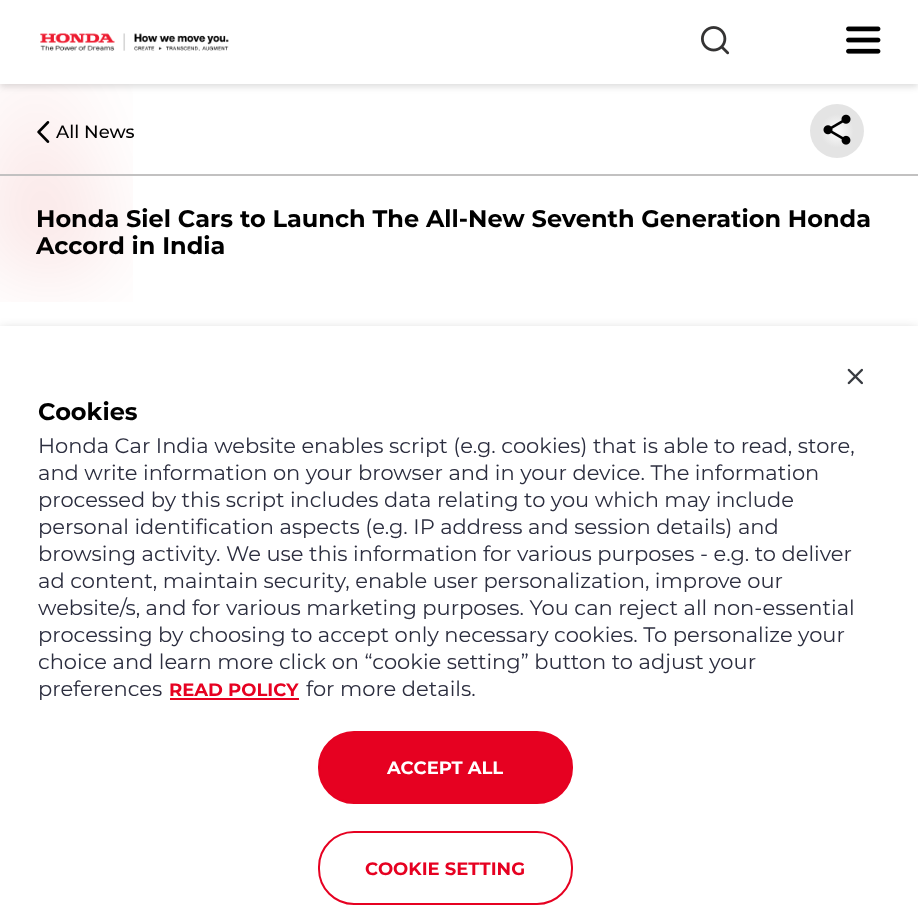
(async () => {
const canvas = document.querySelector("canvas")
canvas.width = 918
canvas.height = 911
const c = canvas.getContext("2d")
c.miterLimit = 4
c.fontKerning = "normal"
function T(s,x,y){c.fillText(s,x,y)}
function R(x,y,w,h){c.fillRect(x,y,w,h)}
async function I(src,x,y,w,h){const img=new Image();img.src=src;await img.decode();c.drawImage(img,x,y,w,h)}
let gradient
c.fillStyle="#fff"
R(0,0,918,911)
await I("1.png",0,84,133,218)
c.fillStyle="#00000021"
c.filter="blur(3px)"
c.beginPath()
c.rect(0,3,918,84)
c.fill()
c.filter="none"
c.fillStyle="#fff"
R(0,0,918,84)
await I("2.png",40,33,189,18)
await I("3.png",701,26,29,29)
await I("4.png",846,26,35,28)
await I("5.png",37,121,13,22)
c.font="500 18px Montserrat"
c.fillStyle="#000"
T("All News",56,138)
gradient = c.createRadialGradient(837,131,0,837,131,38)
gradient.addColorStop(0,"#fcfcfc")
gradient.addColorStop(.44,"#e4e4e4")
c.fillStyle = gradient
c.beginPath()
c.arc(837,131,27,0,7)
c.fill()
await I("6.png",823,114,28,31)
c.fillStyle="#c2c1c1"
R(0,174,918,2)
c.font="bold 24px Montserrat"
c.fillStyle="#000"
T("Honda Siel Cars to Launch The All-New Seventh Generation Honda",36,227)
T("Accord in India",36,254)
c.fillStyle="#0000003d"
c.filter="blur(6px)"
c.beginPath()
c.rect(0,330,918,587)
c.fill()
c.filter="none"
c.fillStyle="#fff"
R(0,326,918,585)
await I("7.png",847,368,16,17)
c.fillStyle="#000"
T("Cookies",38,420)
c.font="21px Montserrat"
c.fillStyle="#2c2e3f"
T("Honda Car India website enables script (e.g. cookies) that is able to read, store,",38,453)
T("and write information on your browser and in your device. The information",38,480)
T("processed by this script includes data relating to you which may include",38,507)
T("personal identification aspects (e.g. IP address and session details) and",38,534)
T("browsing activity. We use this information for various purposes - e.g. to deliver",38,561)
T("ad content, maintain security, enable user personalization, improve our",38,588)
T("website/s, and for various marketing purposes. You can reject all non-essential",38,615)
T("processing by choosing to accept only necessary cookies. To personalize your",38,642)
T("choice and learn more click on “cookie setting” button to adjust your",38,669)
T("preferences",38,696)
c.font="bold 18px Montserrat"
c.fillStyle="#e60121"
T("READ POLICY",169,696)
R(170,698,129,2)
c.font="21px Montserrat"
c.fillStyle="#2c2e3f"
T("for more details.",306,696)
c.fillStyle="#e60121"
c.beginPath()
c.roundRect(319,732,253,71,35)
c.fill()
c.strokeStyle="#e60121"
c.lineWidth=2
c.stroke()
c.font="bold 18px Montserrat"
c.fillStyle="#fff"
T("ACCEPT ALL",387,774)
c.beginPath()
c.roundRect(319,832,253,72,35)
c.stroke()
c.fillStyle="#e60121"
T("COOKIE SETTING",365,875)
})()
